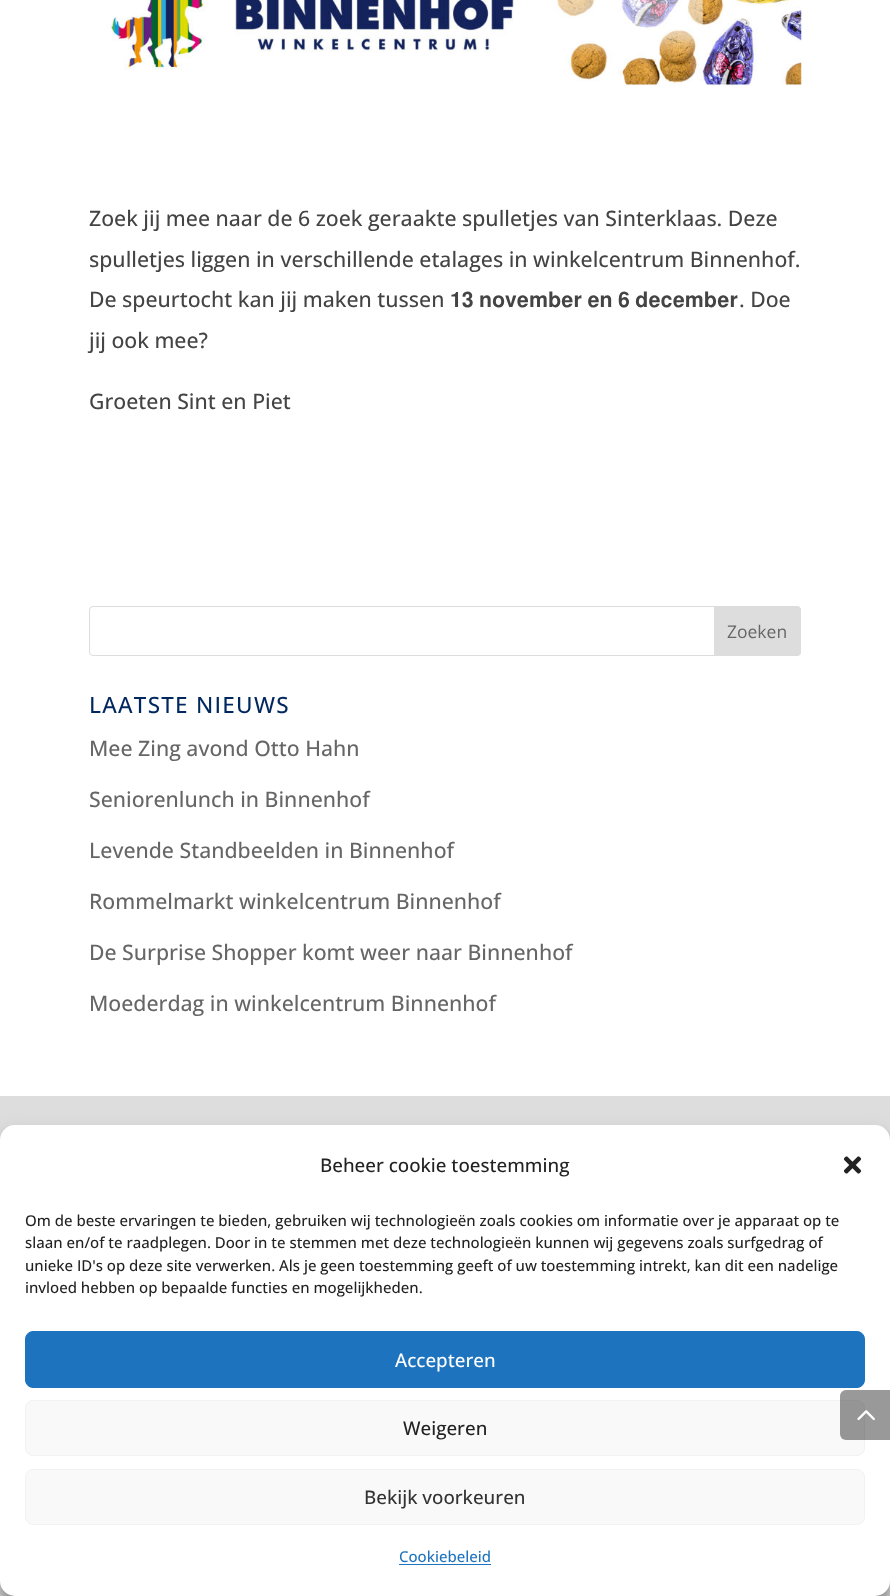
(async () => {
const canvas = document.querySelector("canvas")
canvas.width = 890
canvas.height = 1596
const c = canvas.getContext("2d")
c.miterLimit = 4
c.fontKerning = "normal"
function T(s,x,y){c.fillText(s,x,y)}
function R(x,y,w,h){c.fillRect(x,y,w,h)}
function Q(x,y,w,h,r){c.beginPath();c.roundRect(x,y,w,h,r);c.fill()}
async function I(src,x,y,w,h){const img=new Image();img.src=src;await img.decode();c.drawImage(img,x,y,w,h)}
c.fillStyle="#fff"
R(0,0,890,1596)
await I("1.png",106,0,696,86)
c.font="500 21.25px Open Sans"
c.fillStyle="#444"
T("Zoek jij mee naar de 6 zoek geraakte spulletjes van Sinterklaas. Deze",89,226)
T("spulletjes liggen in verschillende etalages in winkelcentrum Binnenhof.",89,267)
T("De speurtocht kan jij maken tussen",89,307)
c.font="21.25px FreeSans"
T("𝟏𝟑 𝐧𝐨𝐯𝐞𝐦𝐛𝐞𝐫 𝐞𝐧 𝟔 𝐝𝐞𝐜𝐞𝐦𝐛𝐞𝐫",450,307)
c.font="500 21.25px Open Sans"
T(". Doe",739,307)
T("jij ook mee?",89,348)
T("Groeten Sint en Piet",89,409)
c.beginPath()
c.roundRect(89.5,606.5,711,49,3.5)
c.strokeStyle="#ddd"
c.stroke()
c.fillStyle="#ddd"
c.beginPath()
c.roundRect(714.5,606.5,86,49,[0,3.5,3.5,0])
c.fill()
c.stroke()
c.font="17.5px Open Sans"
c.fillStyle="#666"
T("Zoeken",727,638)
c.letterSpacing="1.25px"
c.font="500 22.5px Open Sans"
c.fillStyle="#00285f"
T("LAATSTE NIEUWS",89,713)
c.letterSpacing="0px"
c.font="500 21.25px Open Sans"
c.fillStyle="#666"
T("Mee Zing avond Otto Hahn",89,756)
T("Seniorenlunch in Binnenhof",89,807)
T("Levende Standbeelden in Binnenhof",89,858)
T("Rommelmarkt winkelcentrum Binnenhof",89,909)
T("De Surprise Shopper komt weer naar Binnenhof",89,960)
T("Moederdag in winkelcentrum Binnenhof",89,1011)
c.fillStyle="#ddd"
R(0,1096,890,500)
c.fillStyle="#0000003b"
c.filter="blur(4px)"
c.beginPath()
c.roundRect(0,1133,890,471,15)
c.fill()
c.filter="none"
c.fillStyle="#00000030"
c.filter="blur(12.5px)"
c.beginPath()
c.roundRect(0,1138,890,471,15)
c.fill()
c.filter="none"
c.fillStyle="#fff"
Q(0,1125,890,471,15)
c.fillStyle="#f9f9f9"
c.beginPath()
c.roundRect(25.5,1400.5,839,55,7.5)
c.fill()
c.strokeStyle="#f2f2f2"
c.stroke()
c.fillStyle="#00000066"
c.beginPath()
c.roundRect(840,1390,50,50,[6,0,0,6])
c.fill()
await I("2.png",857,1410,18,11)
c.font="500 18.75px Open Sans"
c.fillStyle="#222"
T("Beheer cookie toestemming",320,1172)
await I("3.png",843,1156,19,18)
c.font="500 15px Open Sans"
T("Om de beste ervaringen te bieden, gebruiken wij technologieën zoals cookies om informatie over je apparaat op te",25,1226)
T("slaan en/of te raadplegen. Door in te stemmen met deze technologieën kunnen wij gegevens zoals surfgedrag of",25,1248)
T("unieke ID's op deze site verwerken. Als je geen toestemming geeft of uw toestemming intrekt, kan dit een nadelige",25,1271)
T("invloed hebben op bepaalde functies en mogelijkheden.",25,1293)
c.fillStyle="#1e73be"
c.beginPath()
c.roundRect(25.5,1331.5,839,56,7.5)
c.fill()
c.strokeStyle="#1e73be"
c.stroke()
c.font="500 18.75px Open Sans"
c.fillStyle="#fff"
T("Accepteren",395,1367)
c.fillStyle="#222"
T("Weigeren",403,1435)
c.fillStyle="#f9f9f9"
c.beginPath()
c.roundRect(25.5,1469.5,839,55,7.5)
c.fill()
c.strokeStyle="#f2f2f2"
c.stroke()
c.fillStyle="#333"
T("Bekijk voorkeuren",364,1504)
c.font="500 15px Open Sans"
c.fillStyle="#1e73be"
T("Cookiebeleid",399,1562)
R(399,1564,92,1)
})()
